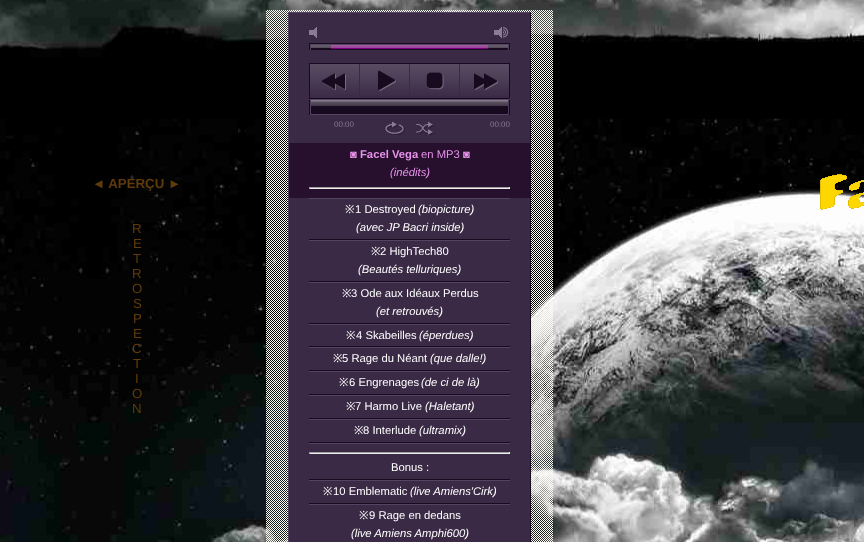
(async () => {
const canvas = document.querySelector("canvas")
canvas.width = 864
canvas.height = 542
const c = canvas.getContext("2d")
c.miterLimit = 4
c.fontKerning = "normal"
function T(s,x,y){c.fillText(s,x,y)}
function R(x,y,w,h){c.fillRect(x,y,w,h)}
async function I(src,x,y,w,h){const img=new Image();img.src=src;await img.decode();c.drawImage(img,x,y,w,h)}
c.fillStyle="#fff"
R(0,0,864,542)
await I("1.png",0,0,864,542)
c.font="bold 13.25px Liberation Sans"
c.fillStyle="#603b0b"
T("◄ APERÇU ►",92,188)
c.font="13.25px Liberation Sans"
T("R",132,233)
T("E",133,248)
T("T",133,263)
T("R",132,278)
T("O",132,293)
T("S",133,308)
T("P",133,323)
T("E",133,338)
T("C",132,353)
T("T",133,368)
T("I",135,383)
T("O",132,398)
T("N",132,413)
await I("2.png",266,10,287,532)
c.fillStyle="#3a2a45"
R(289,13,241,529)
c.fillStyle="#554461"
R(288,12,243,1)
c.fillStyle="#180a1f"
R(530,12,1,530)
c.fillStyle="#554461"
R(288,12,1,530)
await I("3.png",309,27,8,11)
await I("4.png",494,27,16,11)
await I("5.png",309,43,201,7)
await I("6.png",331,45,157,4)
await I("7.png",309,63,201,37)
await I("8.png",310,64,49,33)
await I("9.png",360,64,49,32)
await I("10.png",410,64,49,32)
await I("11.png",460,64,49,32)
await I("12.png",309,100,201,15)
await I("13.png",311,100,197,13)
c.font="8px Liberation Sans"
c.fillStyle="#8c7a99"
T("00:00",334,127)
await I("14.png",383,120,23,15)
await I("15.png",415,121,20,15)
T("00:00",490,127)
c.fillStyle="#26102e"
R(289,143,241,55)
c.font="11.25px Liberation Sans"
c.fillStyle="#e892e9"
T("◙",350,158)
c.font="bold 11.25px Liberation Sans"
T("Facel Vega",360,158)
c.font="11.25px Liberation Sans"
T("en MP3 ◙",421,158)
c.font="italic 11.25px Liberation Sans"
T("(inédits)",390,176)
c.fillStyle="#9f9f9f"
R(309,187,201,1)
c.fillStyle="#eee"
R(509,187,1,2)
R(309,188,201,1)
c.fillStyle="#9f9f9f"
R(309,187,1,2)
c.fillStyle="#554461"
R(309,198,201,1)
c.fillStyle="#180a1f"
R(309,239,201,1)
c.font="11.25px Noto Sans"
c.fillStyle="#fff"
T("※",345,213)
c.font="11.25px Liberation Sans"
T("1 Destroyed",355,213)
c.font="italic 11.25px Liberation Sans"
T("(biopicture)",418,213)
T("(avec JP Bacri inside)",356,231)
c.fillStyle="#554461"
R(309,240,201,1)
c.fillStyle="#180a1f"
R(309,281,201,1)
c.font="11.25px Noto Sans"
c.fillStyle="#fff"
T("※",371,255)
c.font="11.25px Liberation Sans"
T("2 HighTech80",380,255)
c.font="italic 11.25px Liberation Sans"
T("(Beautés telluriques)",358,273)
c.fillStyle="#554461"
R(309,282,201,1)
c.fillStyle="#180a1f"
R(309,323,201,1)
c.font="11.25px Noto Sans"
c.fillStyle="#fff"
T("※",342,297)
c.font="11.25px Liberation Sans"
T("3 Ode aux Idéaux Perdus",351,297)
c.font="italic 11.25px Liberation Sans"
T("(et retrouvés)",376,315)
c.fillStyle="#554461"
R(309,324,201,1)
c.fillStyle="#180a1f"
R(309,346,201,1)
c.font="11.25px Noto Sans"
c.fillStyle="#fff"
T("※",346,339)
c.font="11.25px Liberation Sans"
T("4 Skabeilles",356,339)
c.font="italic 11.25px Liberation Sans"
T("(éperdues)",419,339)
c.fillStyle="#554461"
R(309,347,201,1)
c.fillStyle="#180a1f"
R(309,370,201,1)
c.font="11.25px Noto Sans"
c.fillStyle="#fff"
T("※",333,362)
c.font="11.25px Liberation Sans"
T("5 Rage du Néant",342,362)
c.font="italic 11.25px Liberation Sans"
T("(que dalle!)",430,362)
c.fillStyle="#554461"
R(309,371,201,1)
c.fillStyle="#180a1f"
R(309,394,201,1)
c.font="11.25px Noto Sans"
c.fillStyle="#fff"
T("※",339,386)
c.font="11.25px Liberation Sans"
T("6 Engrenages",349,386)
c.font="italic 11.25px Liberation Sans"
T("(de ci de là)",421,386)
c.fillStyle="#554461"
R(309,395,201,1)
c.fillStyle="#180a1f"
R(309,418,201,1)
c.font="11.25px Noto Sans"
c.fillStyle="#fff"
T("※",346,410)
c.font="11.25px Liberation Sans"
T("7 Harmo Live",355,410)
c.font="italic 11.25px Liberation Sans"
T("(Haletant)",425,410)
c.fillStyle="#554461"
R(309,419,201,1)
c.fillStyle="#180a1f"
R(309,442,201,1)
c.font="11.25px Noto Sans"
c.fillStyle="#fff"
T("※",354,434)
c.font="11.25px Liberation Sans"
T("8 Interlude",363,434)
c.font="italic 11.25px Liberation Sans"
T("(ultramix)",419,434)
c.fillStyle="#554461"
R(309,443,201,1)
c.fillStyle="#180a1f"
R(309,479,201,1)
c.fillStyle="#9f9f9f"
R(309,452,201,1)
c.fillStyle="#eee"
R(509,452,1,2)
R(309,453,201,1)
c.fillStyle="#9f9f9f"
R(309,452,1,2)
c.font="11.25px Liberation Sans"
c.fillStyle="#fff"
T("Bonus :",391,471)
c.fillStyle="#554461"
R(309,480,201,1)
c.fillStyle="#180a1f"
R(309,503,201,1)
c.font="11.25px Noto Sans"
c.fillStyle="#fff"
T("※",323,495)
c.font="11.25px Liberation Sans"
T("10 Emblematic",333,495)
c.font="italic 11.25px Liberation Sans"
T("(live Amiens'Cirk)",410,495)
c.fillStyle="#554461"
R(309,504,201,1)
c.font="11.25px Noto Sans"
c.fillStyle="#fff"
T("※",359,519)
c.font="11.25px Liberation Sans"
T("9 Rage en dedans",369,519)
c.font="italic 11.25px Liberation Sans"
T("(live Amiens Amphi600)",351,537)
await I("16.png",820,174,44,36)
})()
